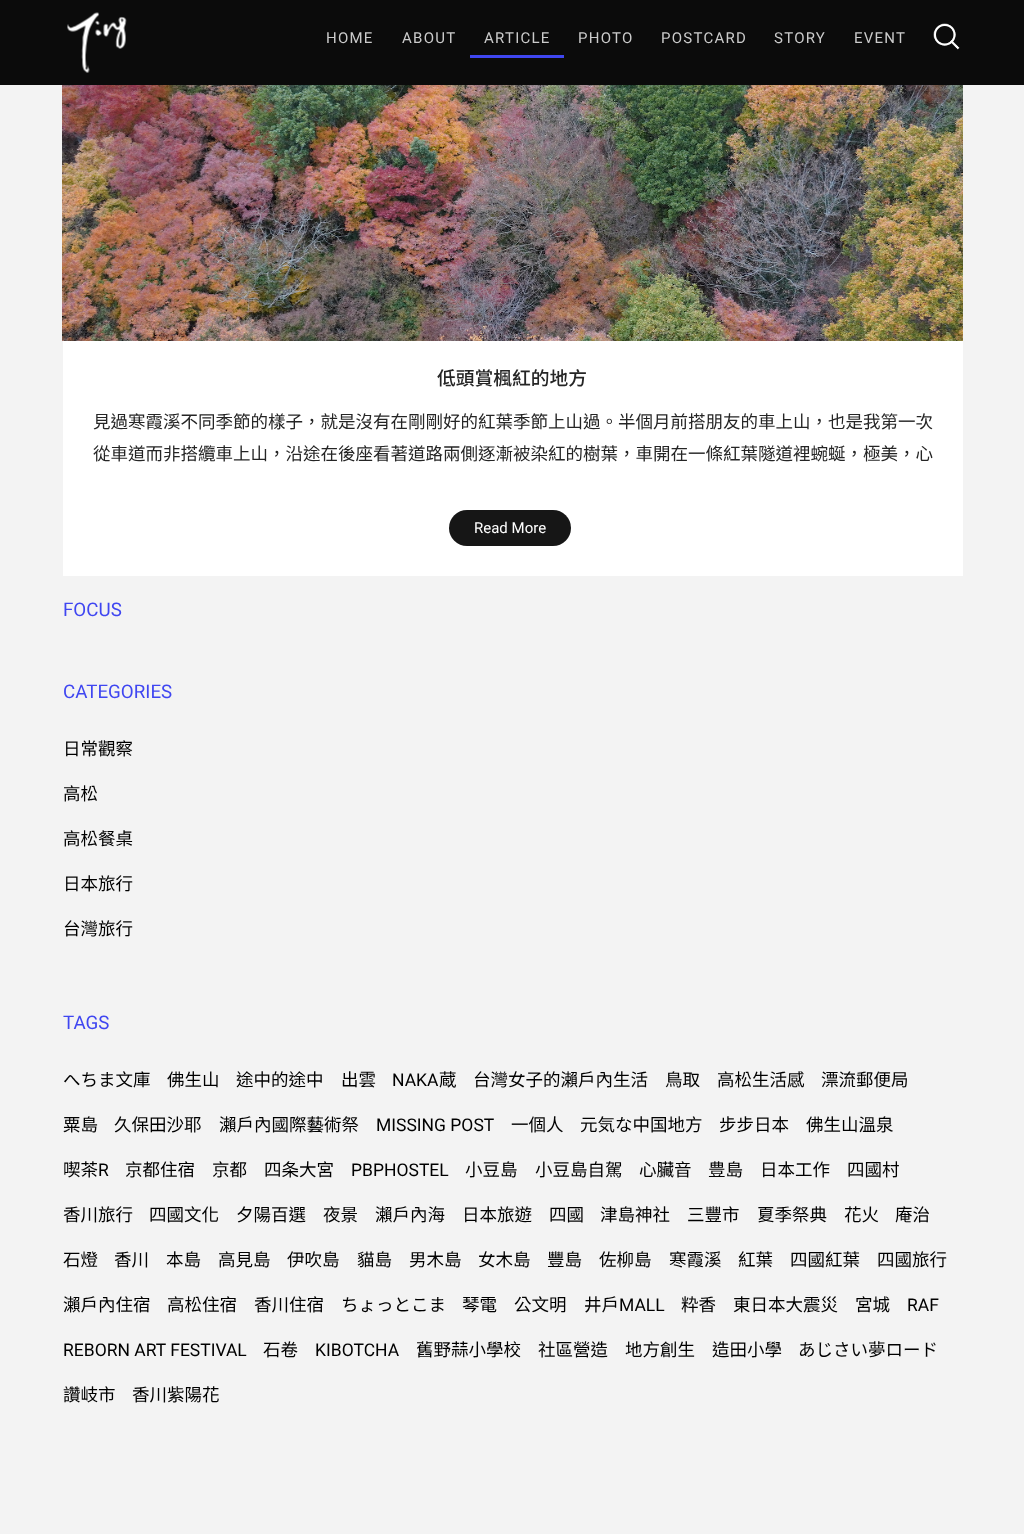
(async () => {
const canvas = document.querySelector("canvas")
canvas.width = 1024
canvas.height = 1534
const c = canvas.getContext("2d")
c.miterLimit = 4
c.fontKerning = "normal"
function T(s,x,y){c.fillText(s,x,y)}
function R(x,y,w,h){c.fillRect(x,y,w,h)}
function Q(x,y,w,h,r){c.beginPath();c.roundRect(x,y,w,h,r);c.fill()}
async function I(src,x,y,w,h){const img=new Image();img.src=src;await img.decode();c.drawImage(img,x,y,w,h)}
c.fillStyle="#f3f3f3"
R(0,0,1024,1534)
c.fillStyle="#0b0b0b"
R(0,0,1024,85)
await I("1.png",67,12,60,61)
c.letterSpacing="1.25px"
c.font="15px Roboto"
c.fillStyle="#cbcbcb"
T("HOME",326,43)
T("ABOUT",402,43)
T("ARTICLE",484,43)
c.fillStyle="#3f46f1"
R(470,55,94,3)
c.fillStyle="#cbcbcb"
T("PHOTO",578,43)
T("POSTCARD",661,43)
T("STORY",774,43)
T("EVENT",854,43)
await I("2.png",933,23,27,27)
c.fillStyle="#fff"
R(63,341,900,235)
await I("3.png",62,85,901,256)
c.letterSpacing="0px"
c.font="500 18.75px Noto Sans TC"
c.fillStyle="#252525"
T("低頭賞楓紅的地方",437,385)
c.font="17.5px Noto Sans TC"
T("見過寒霞溪不同季節的樣子，就是沒有在剛剛好的紅葉季節上山過。半個月前搭朋友的車上山，也是我第一次",93,428)
T("從車道而非搭纜車上山，沿途在後座看著道路兩側逐漸被染紅的樹葉，車開在一條紅葉隧道裡蜿蜒，極美，心",93,460)
c.fillStyle="#161616"
Q(449,510,122,36,18)
c.font="15px Roboto"
c.fillStyle="#fff"
T("Read More",474,533)
c.font="18.75px Roboto"
c.fillStyle="#3f46f1"
T("FOCUS",63,616)
T("CATEGORIES",63,698)
c.font="17.5px Noto Sans TC"
c.fillStyle="#000"
T("日常觀察",63,755)
T("高松",63,800)
T("高松餐桌",63,845)
T("日本旅行",63,890)
T("台灣旅行",63,935)
c.font="18.75px Roboto"
c.fillStyle="#3f46f1"
T("TAGS",63,1029)
c.font="17.5px Noto Sans TC"
c.fillStyle="#000"
T("へちま文庫",63,1086)
T("佛生山",167,1086)
T("途中的途中",236,1086)
T("出雲",341,1086)
c.font="17.5px Roboto"
T("NAKA",392,1086)
c.font="17.5px Noto Sans CJK TC"
T("蔵",439,1086)
c.font="17.5px Noto Sans TC"
T("台灣女子的瀨戶內生活",473,1086)
T("鳥取",665,1086)
T("高松生活感",717,1086)
T("漂流郵便局",821,1086)
T("粟島",63,1131)
T("久保田沙耶",114,1131)
T("瀨戶內國際藝術祭",219,1131)
c.font="17.5px Roboto"
T("MISSING POST",376,1131)
c.font="17.5px Noto Sans TC"
T("一個人",511,1131)
c.font="17.5px Noto Sans CJK TC"
T("元気な中国地方",580,1131)
c.font="17.5px Noto Sans TC"
T("步步日本",719,1131)
T("佛生山溫泉",806,1131)
T("喫茶",63,1176)
c.font="17.5px Roboto"
T("R",98,1176)
c.font="17.5px Noto Sans TC"
T("京都住宿",125,1176)
T("京都",212,1176)
T("四条大宮",264,1176)
c.font="17.5px Roboto"
T("PBPHOSTEL",351,1176)
c.font="17.5px Noto Sans TC"
T("小豆島",465,1176)
T("小豆島自駕",535,1176)
T("心臟音",639,1176)
T("豊島",708,1176)
T("日本工作",760,1176)
T("四國村",847,1176)
T("香川旅行",63,1221)
T("四國文化",149,1221)
T("夕陽百選",236,1221)
T("夜景",323,1221)
T("瀨戶內海",375,1221)
T("日本旅遊",462,1221)
T("四國",549,1221)
T("津島神社",600,1221)
T("三豐市",687,1221)
T("夏季祭典",757,1221)
T("花火",844,1221)
T("庵治",895,1221)
T("石燈",63,1266)
T("香川",114,1266)
T("本島",166,1266)
T("高見島",218,1266)
T("伊吹島",287,1266)
T("貓島",357,1266)
T("男木島",409,1266)
T("女木島",478,1266)
T("豐島",547,1266)
T("佐柳島",599,1266)
T("寒霞溪",669,1266)
T("紅葉",738,1266)
T("四國紅葉",790,1266)
T("四國旅行",877,1266)
T("瀨戶內住宿",63,1311)
T("高松住宿",167,1311)
T("香川住宿",254,1311)
T("ちょっとこま",341,1311)
T("琴電",462,1311)
T("公文明",514,1311)
T("井戶",584,1311)
c.font="17.5px Roboto"
T("MALL",619,1311)
c.font="17.5px Noto Sans CJK TC"
T("粋香",681,1311)
c.font="17.5px Noto Sans TC"
T("東日本大震災",733,1311)
T("宮城",855,1311)
c.font="17.5px Roboto"
T("RAF",907,1311)
T("REBORN ART FESTIVAL",63,1356)
c.font="17.5px Noto Sans TC"
T("石卷",263,1356)
c.font="17.5px Roboto"
T("KIBOTCHA",315,1356)
c.font="17.5px Noto Sans TC"
T("舊野蒜小學校",416,1356)
T("社區營造",538,1356)
T("地方創生",625,1356)
T("造田小學",712,1356)
T("あじさい夢ロード",798,1356)
T("讚岐市",63,1401)
T("香川紫陽花",132,1401)
})()
